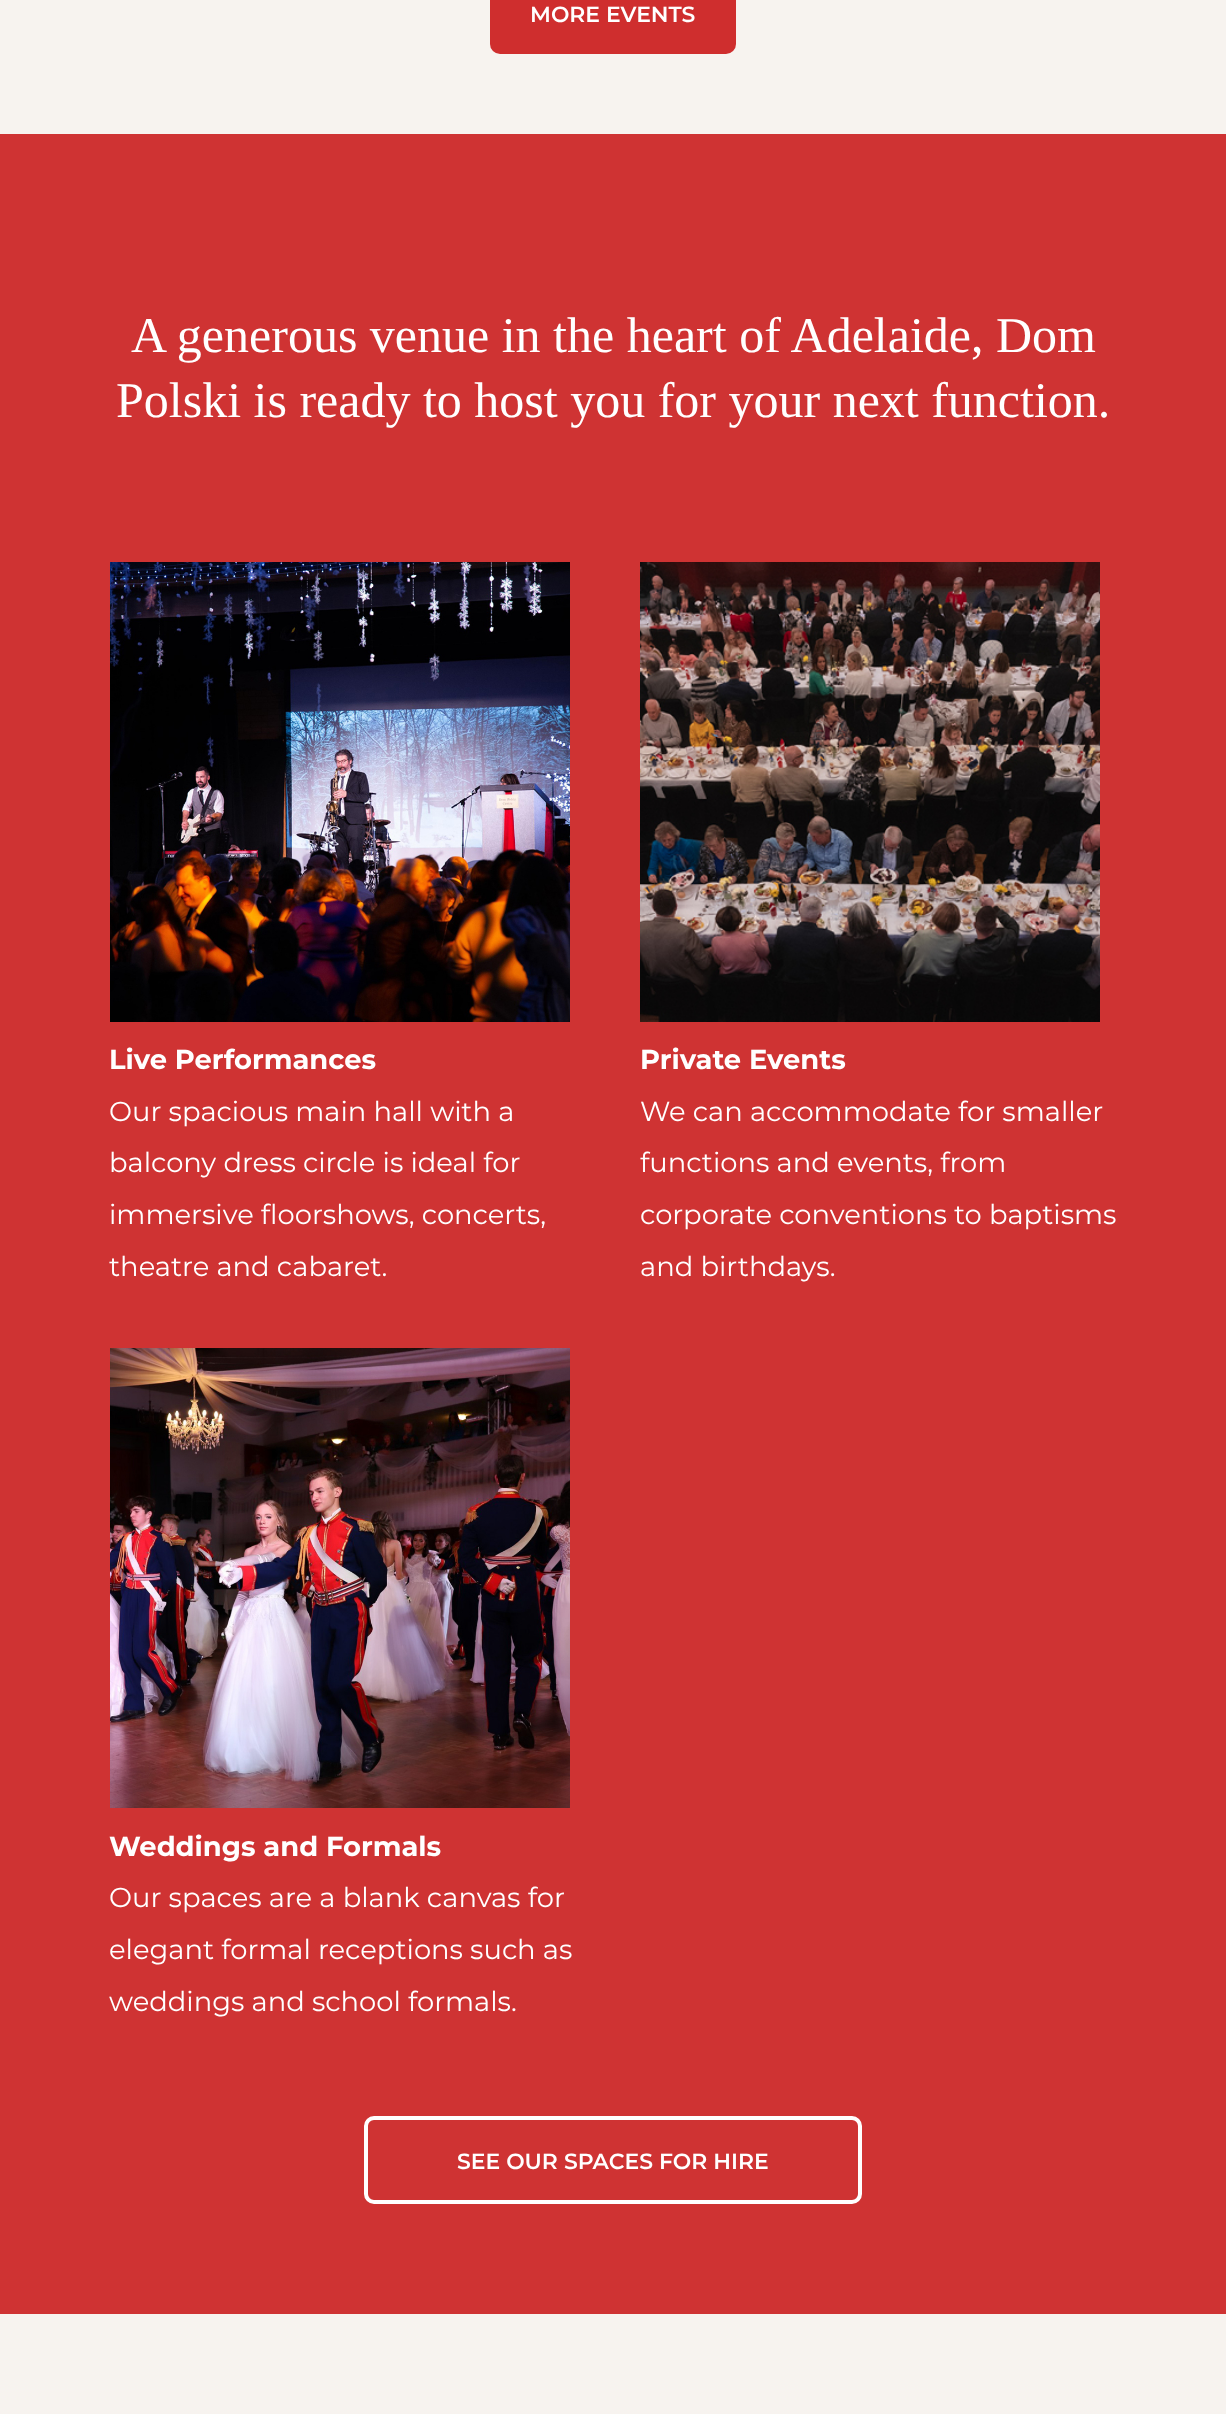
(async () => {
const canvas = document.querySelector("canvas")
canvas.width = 1226
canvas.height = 2414
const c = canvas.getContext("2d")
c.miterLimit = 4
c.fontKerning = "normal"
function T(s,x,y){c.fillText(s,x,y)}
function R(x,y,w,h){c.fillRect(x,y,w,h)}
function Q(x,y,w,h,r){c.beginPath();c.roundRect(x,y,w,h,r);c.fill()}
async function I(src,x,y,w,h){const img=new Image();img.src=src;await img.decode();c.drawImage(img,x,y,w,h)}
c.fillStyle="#f7f3ef"
R(0,0,1226,2414)
c.fillStyle="#cf2e2e"
Q(490,-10,246,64,10)
c.font="600 21.9px Montserrat"
c.fillStyle="#fff"
T("MORE EVENTS",530,22)
c.fillStyle="#cf3333"
R(0,134,1226,2180)
c.font="50px Liberation Serif"
c.fillStyle="#fff"
T("A generous venue in the heart of Adelaide, Dom",131,352)
T("Polski is ready to host you for your next function.",116,417)
await I("1.png",110,562,460,460)
c.font="bold 27.4px Montserrat"
T("Live Performances",109,1069)
c.font="27.4px Montserrat"
T("Our spacious main hall with a",109,1121)
T("balcony dress circle is ideal for",109,1172)
T("immersive floorshows, concerts,",109,1224)
T("theatre and cabaret.",109,1276)
await I("2.png",640,562,460,460)
c.font="bold 27.4px Montserrat"
T("Private Events",640,1069)
c.font="27.4px Montserrat"
T("We can accommodate for smaller",640,1121)
T("functions and events, from",640,1172)
T("corporate conventions to baptisms",640,1224)
T("and birthdays.",640,1276)
await I("3.png",110,1348,460,460)
c.font="bold 27.4px Montserrat"
T("Weddings and Formals",109,1856)
c.font="27.4px Montserrat"
T("Our spaces are a blank canvas for",109,1907)
T("elegant formal receptions such as",109,1959)
T("weddings and school formals.",109,2011)
c.beginPath()
c.roundRect(366,2118,494,84,8)
c.strokeStyle="#fff"
c.lineWidth=4
c.stroke()
c.font="600 21.9px Montserrat"
T("SEE OUR SPACES FOR HIRE",457,2169)
})()
